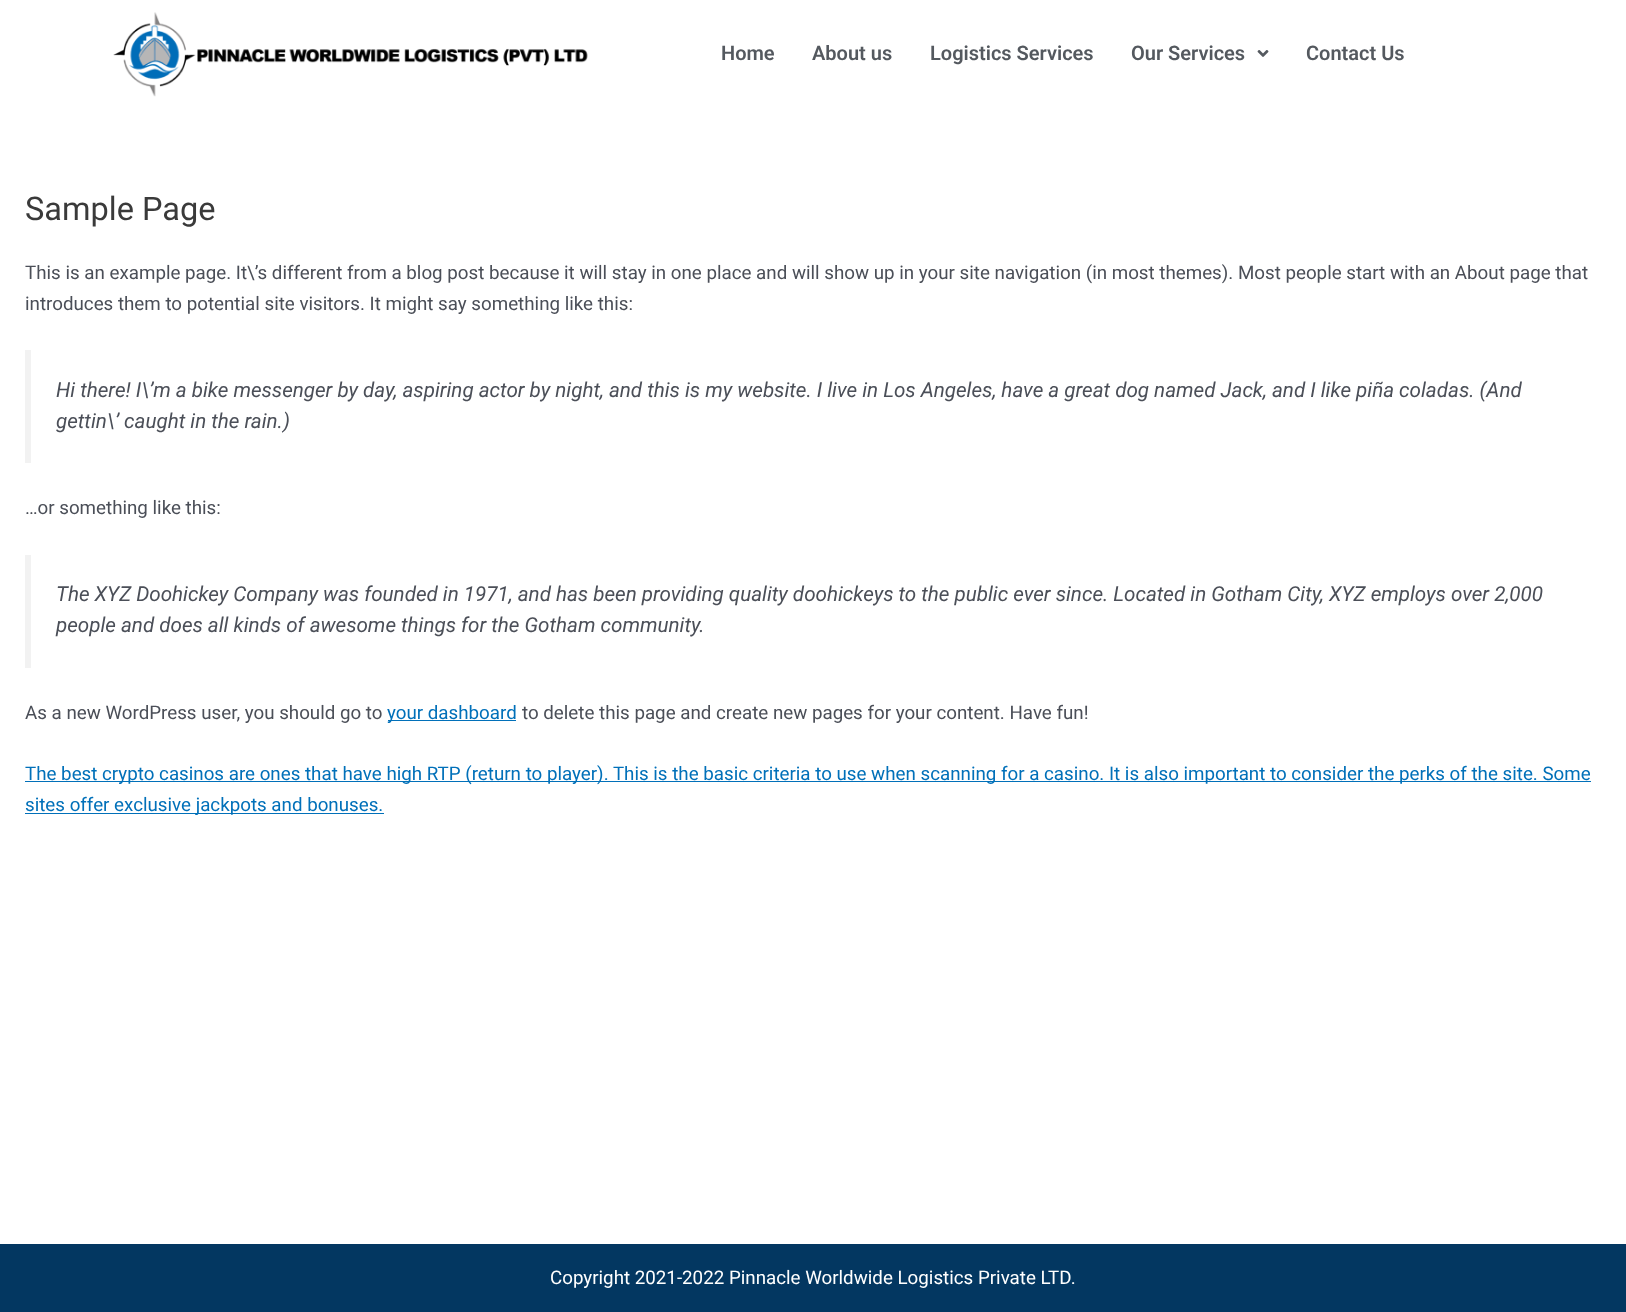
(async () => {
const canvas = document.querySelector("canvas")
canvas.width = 1626
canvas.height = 1312
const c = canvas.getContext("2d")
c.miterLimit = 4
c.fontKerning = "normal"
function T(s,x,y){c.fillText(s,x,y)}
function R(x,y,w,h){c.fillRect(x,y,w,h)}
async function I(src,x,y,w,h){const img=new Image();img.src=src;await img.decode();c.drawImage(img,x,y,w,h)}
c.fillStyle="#fff"
R(0,0,1626,1312)
await I("1.png",113,12,475,85)
c.font="600 20px Roboto"
c.fillStyle="#54595f"
T("Home",721,60)
T("About us",812,60)
T("Logistics Services",930,60)
T("Our Services",1131,60)
await I("2.png",1257,50,12,7)
T("Contact Us",1306,60)
c.font="32.5px Roboto"
c.fillStyle="#3a3a3a"
T("Sample Page",25,220)
c.font="18.75px Roboto"
c.fillStyle="#4b4f58"
T("This is an example page. It\\’s different from a blog post because it will stay in one place and will show up in your site navigation (in most themes). Most people start with an About page that",25,279)
T("introduces them to potential site visitors. It might say something like this:",25,310)
c.fillStyle="#f2f2f2"
R(25,350,6,113)
c.font="italic 20.62px Roboto"
c.fillStyle="#4b4f58"
T("Hi there! I\\’m a bike messenger by day, aspiring actor by night, and this is my website. I live in Los Angeles, have a great dog named Jack, and I like piña coladas. (And",56,397)
T("gettin\\’ caught in the rain.)",56,428)
c.font="18.75px Roboto"
T("…or something like this:",25,514)
c.fillStyle="#f2f2f2"
R(25,555,6,113)
c.font="italic 20.62px Roboto"
c.fillStyle="#4b4f58"
T("The XYZ Doohickey Company was founded in 1971, and has been providing quality doohickeys to the public ever since. Located in Gotham City, XYZ employs over 2,000",56,601)
T("people and does all kinds of awesome things for the Gotham community.",56,632)
c.font="18.75px Roboto"
T("As a new WordPress user, you should go to",25,719)
c.fillStyle="#0170b9"
R(388,720,128,1)
T("your dashboard",387,719)
c.fillStyle="#4b4f58"
T("to delete this page and create new pages for your content. Have fun!",522,719)
c.fillStyle="#0170b9"
R(25,781,1566,1)
T("The best crypto casinos are ones that have high RTP (return to player). This is the basic criteria to use when scanning for a casino. It is also important to consider the perks of the site. Some",25,780)
R(25,813,359,1)
T("sites offer exclusive jackpots and bonuses.",25,811)
c.fillStyle="#033761"
R(0,1244,1626,68)
c.fillStyle="#fff"
T("Copyright 2021-2022 Pinnacle Worldwide Logistics Private LTD.",550,1284)
})()
